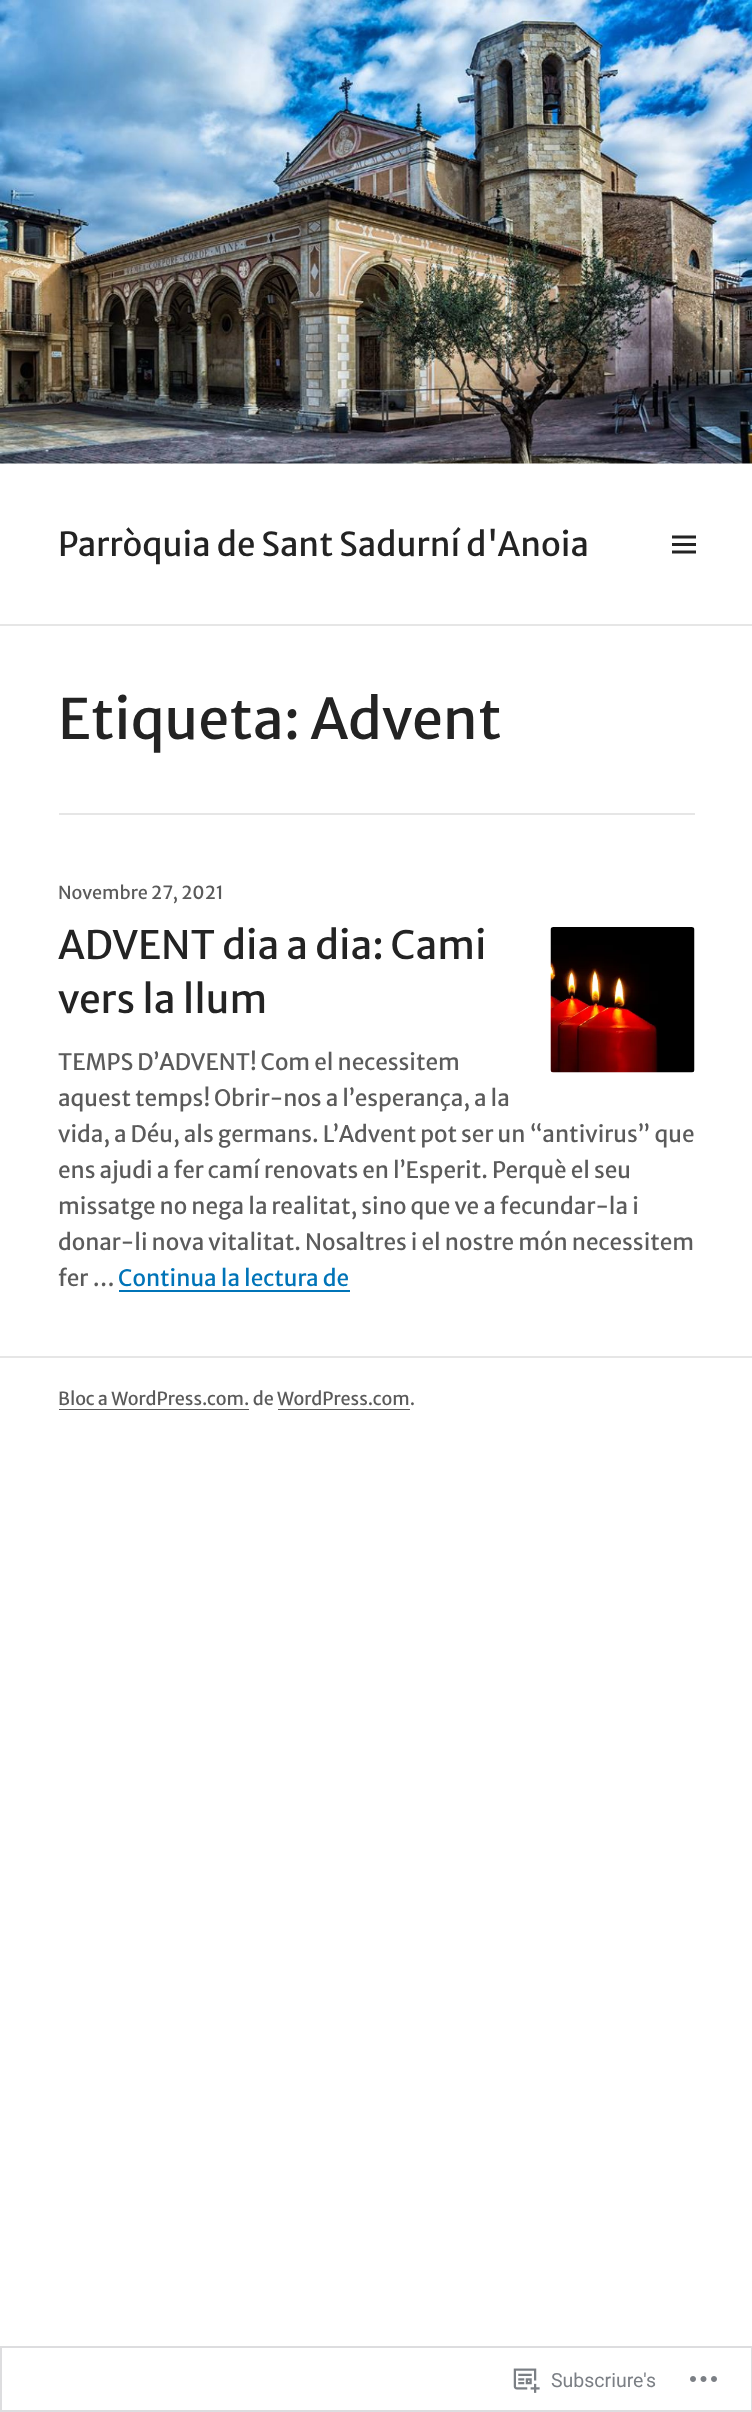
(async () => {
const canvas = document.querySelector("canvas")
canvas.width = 752
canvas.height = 2412
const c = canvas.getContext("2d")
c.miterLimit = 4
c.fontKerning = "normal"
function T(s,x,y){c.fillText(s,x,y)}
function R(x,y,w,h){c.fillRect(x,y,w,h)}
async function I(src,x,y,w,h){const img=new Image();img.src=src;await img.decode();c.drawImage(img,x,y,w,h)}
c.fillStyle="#fff"
R(0,0,752,2412)
await I("1.png",0,0,752,464)
c.fillStyle="#e6e6e6"
R(0,624,752,2)
c.font="33px Merriweather Sans"
c.fillStyle="#232323"
T("Parròquia de Sant Sadurní d'Anoia",58,556)
await I("2.png",672,535,24,19)
c.fillStyle="#e6e6e6"
R(59,813,636,2)
c.font="55.5px Merriweather Sans"
c.fillStyle="#232323"
T("Etiqueta: Advent",58,739)
c.font="18px Merriweather Sans"
c.fillStyle="#5b5b5b"
T("Novembre 27, 2021",58,899)
c.font="39px Merriweather Sans"
c.fillStyle="#232323"
T("ADVENT dia a dia: Cami",58,959)
T("vers la llum",58,1013)
await I("3.png",550,927,145,146)
c.font="22.5px Merriweather Sans"
c.fillStyle="#5b5b5b"
T("TEMPS D’ADVENT! Com el necessitem",58,1070)
T("aquest temps! Obrir-nos a l’esperança, a la",58,1106)
T("vida, a Déu, als germans. L’Advent pot ser un “antivirus” que",58,1142)
T("ens ajudi a fer camí renovats en l’Esperit. Perquè el seu",58,1178)
T("missatge no nega la realitat, sino que ve a fecundar-la i",58,1214)
T("donar-li nova vitalitat. Nosaltres i el nostre món necessitem",58,1250)
T("fer …",58,1286)
c.fillStyle="#0074b8"
T("Continua la lectura de",118,1286)
R(119,1290,231,2)
c.fillStyle="#e6e6e6"
R(0,1356,752,2)
c.font="18px Merriweather Sans"
c.fillStyle="#5b5b5b"
T("Bloc a WordPress.com. de WordPress.com.",58,1405)
R(59,1409,190,1)
R(278,1409,132,1)
c.strokeStyle="#dddddf"
c.lineWidth=2
c.strokeRect(1,2347,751,64)
await I("4.png",513,2368,27,25)
c.font="19.5px Roboto"
c.fillStyle="#7b7f85"
T("Subscriure's",551,2387)
await I("5.png",690,2376,27,6)
})()
